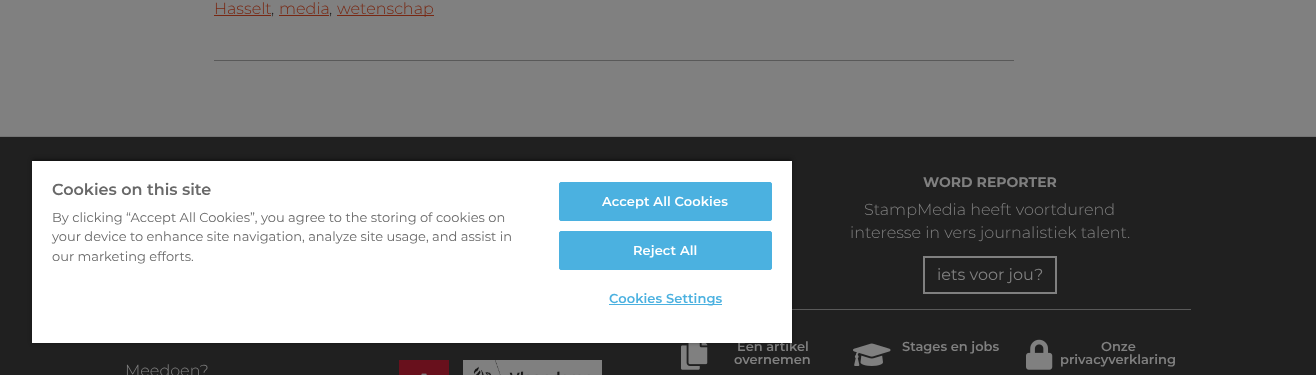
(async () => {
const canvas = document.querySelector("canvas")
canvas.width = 1316
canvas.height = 375
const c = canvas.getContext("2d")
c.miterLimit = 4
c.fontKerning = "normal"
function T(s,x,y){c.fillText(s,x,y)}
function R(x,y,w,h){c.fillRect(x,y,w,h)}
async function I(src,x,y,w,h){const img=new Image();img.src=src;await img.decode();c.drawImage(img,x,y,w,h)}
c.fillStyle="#808080"
R(0,0,1316,375)
c.font="300 16px Montserrat"
c.fillStyle="#782712"
T("Hasselt",214,14)
R(214,15,57,1)
c.fillStyle="#1a1a1a"
T(",",271,14)
c.fillStyle="#782712"
T("media",279,14)
R(279,15,50,1)
c.fillStyle="#1a1a1a"
T(",",329,14)
c.fillStyle="#782712"
R(337,15,97,1)
T("wetenschap",337,14)
c.fillStyle="#595959"
R(214,60,800,1)
c.fillStyle="#202020"
R(0,137,1316,238)
c.fillStyle="#737373"
R(0,136,1316,1)
c.font="bold 14px Montserrat"
c.fillStyle="#808080"
T("WORD REPORTER",923,187)
c.font="300 16px Montserrat"
T("StampMedia heeft voortdurend",864,215)
T("interesse in vers journalistiek talent.",850,238)
c.strokeStyle="#808080"
c.lineWidth=2
c.strokeRect(924,257,132,36)
c.font="16px Montserrat"
T("iets voor jou?",937,280)
c.fillStyle="#595959"
R(792,309,399,1)
await I("1.png",681,343,27,27)
c.font="600 13px Montserrat"
c.fillStyle="#808080"
T("Een artikel",737,351)
T("overnemen",734,364)
await I("2.png",853,343,38,23)
T("Stages en jobs",902,351)
await I("3.png",1026,339,27,31)
T("Onze",1101,351)
T("privacyverklaring",1060,364)
c.font="300 16px Montserrat"
T("Meedoen?",125,376)
await I("4.png",399,360,50,15)
R(463,360,139,15)
await I("5.png",473,360,117,15)
c.fillStyle="#00000059"
c.filter="blur(2px)"
c.beginPath()
c.rect(32,159,760,184)
c.fill()
c.filter="none"
c.save()
c.beginPath()
c.rect(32,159,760,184)
c.clip()
c.fillStyle="#00000033"
c.filter="blur(2px)"
c.beginPath()
c.rect(32,161,760,182)
c.fill()
c.filter="none"
c.restore()
c.fillStyle="#fff"
R(32,161,760,182)
c.font="600 16px Montserrat"
c.fillStyle="#696969"
T("Cookies on this site",52,195)
c.font="13px Montserrat"
T("By clicking “Accept All Cookies”, you agree to the storing of cookies on",52,222)
T("your device to enhance site navigation, analyze site usage, and assist in",52,241)
T("our marketing efforts.",52,261)
c.fillStyle="#4bb1e0"
c.beginPath()
c.roundRect(559.5,182.5,212,38,1.5)
c.fill()
c.strokeStyle="#4bb1e0"
c.lineWidth=1
c.stroke()
c.letterSpacing="0.1px"
c.font="600 13px Montserrat"
c.fillStyle="#fff"
T("Accept All Cookies",602,206)
c.fillStyle="#4bb1e0"
c.beginPath()
c.roundRect(559.5,231.5,212,38,1.5)
c.fill()
c.stroke()
c.fillStyle="#fff"
T("Reject All",633,255)
c.fillStyle="#4bb1e0"
R(609,304,113,1)
T("Cookies Settings",609,303)
})()
